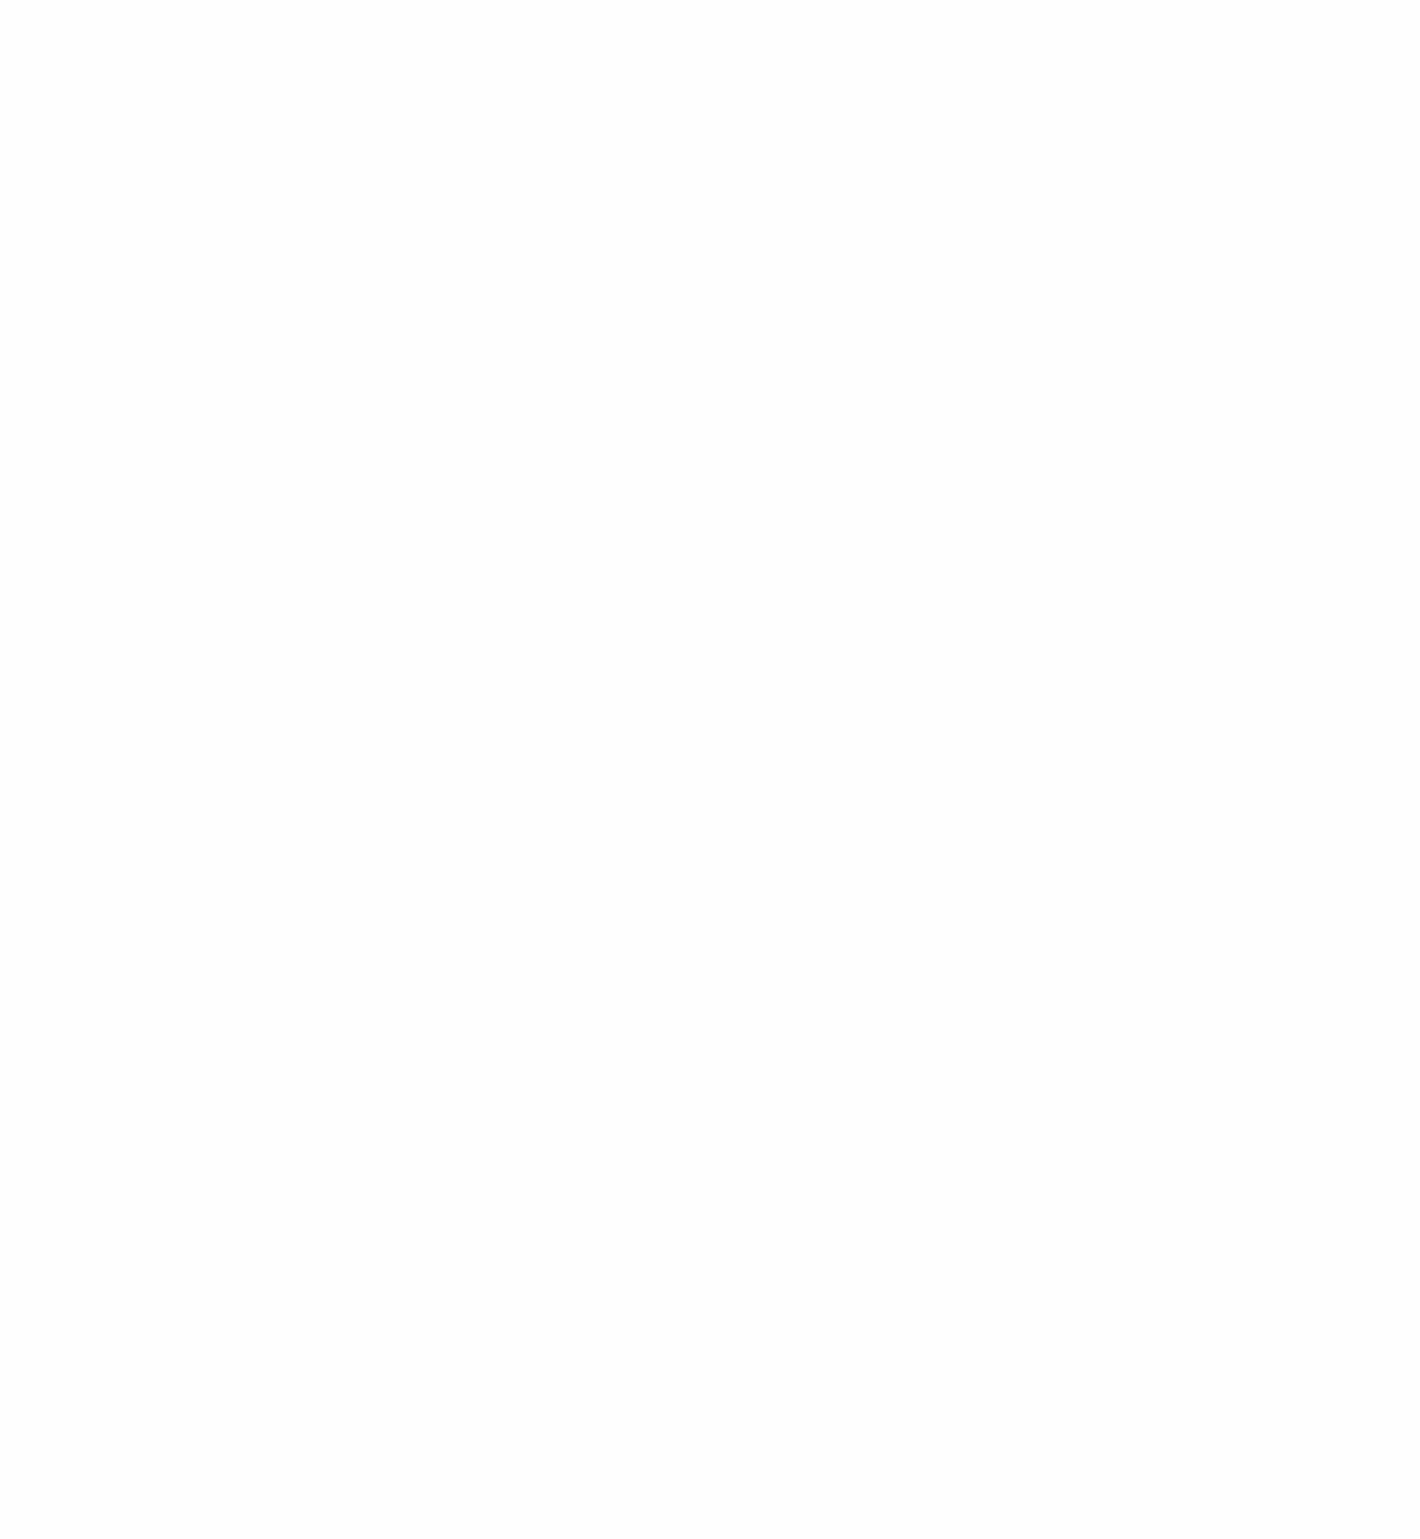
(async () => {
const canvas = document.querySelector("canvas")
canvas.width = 1420
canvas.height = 1539
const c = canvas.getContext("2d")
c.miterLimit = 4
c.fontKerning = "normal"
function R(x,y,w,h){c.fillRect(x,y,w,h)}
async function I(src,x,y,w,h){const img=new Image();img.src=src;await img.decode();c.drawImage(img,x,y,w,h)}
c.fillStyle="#fefefe"
R(0,0,1420,1539)
await I("1.png",525,22,349,57)
await I("2.png",1154,1459,24,24)
await I("3.png",243,539,65,63)
await I("4.png",487,515,157,111)
await I("5.png",822,552,75,39)
await I("6.png",1121,541,60,60)
await I("7.png",258,1448,22,34)
await I("8.png",545,1450,38,30)
await I("9.png",838,1447,39,38)
await I("10.png",1069,1463,12,22)
await I("11.png",1098,1466,20,17)
})()
